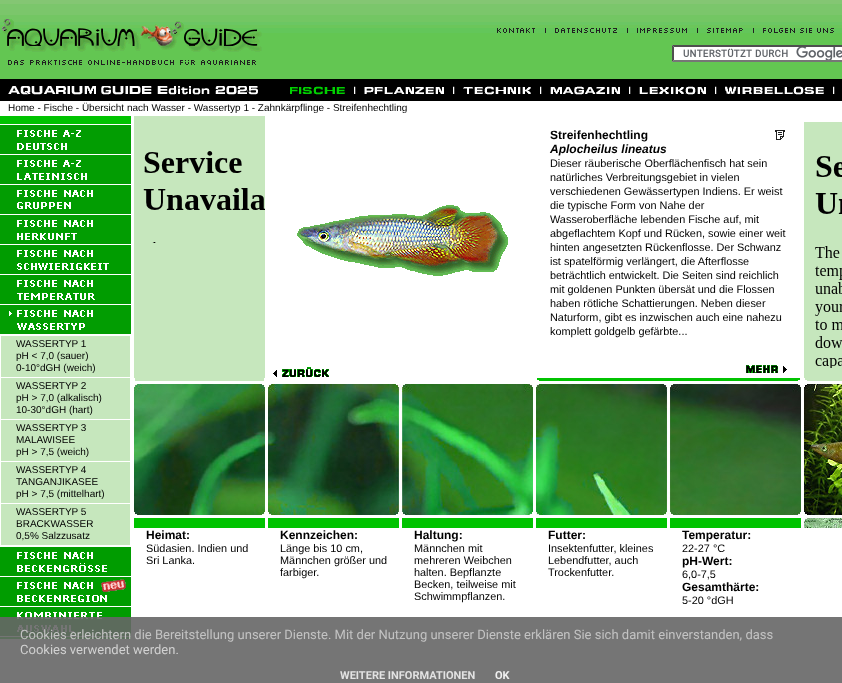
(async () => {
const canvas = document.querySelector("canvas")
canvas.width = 842
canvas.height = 683
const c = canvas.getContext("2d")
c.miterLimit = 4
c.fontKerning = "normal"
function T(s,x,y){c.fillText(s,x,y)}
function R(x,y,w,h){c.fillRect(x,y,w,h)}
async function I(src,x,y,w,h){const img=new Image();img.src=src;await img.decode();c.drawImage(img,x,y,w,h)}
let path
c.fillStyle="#fff"
R(0,0,842,683)
await I("1.png",0,0,842,101)
await I("2.png",2,19,260,46)
await I("3.png",497,28,38,5)
c.fillStyle="#212121"
R(545,28,1,5)
await I("4.png",555,28,62,5)
R(627,28,1,5)
await I("5.png",637,28,50,5)
R(697,28,1,5)
await I("6.png",707,28,36,5)
R(753,28,1,5)
await I("7.png",763,28,71,5)
c.fillStyle="#fff"
R(672,45,170,17)
await I("8.png",683,47,159,13)
c.fillStyle="#4f4f4f"
path = new Path2D("M672 45h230l-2 2h-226z")
c.fill(path)
c.fillStyle="#767676"
path = new Path2D("M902 62h-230l2-2h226z")
c.fill(path)
c.fillStyle="#4f4f4f"
path = new Path2D("M672 62v-17l2 2v13z")
c.fill(path)
await I("9.png",8,86,250,9)
await I("10.png",290,86,55,9)
await I("11.png",354,86,2,8)
await I("12.png",364,87,80,7)
await I("11.png",453,86,2,8)
await I("13.png",463,86,68,9)
await I("11.png",540,86,2,8)
await I("14.png",550,86,70,9)
await I("11.png",629,86,2,8)
await I("15.png",639,86,67,9)
await I("11.png",715,86,2,8)
await I("16.png",725,86,99,9)
await I("11.png",833,86,2,8)
c.font="10px Liberation Sans"
c.fillStyle="#000"
T("Home - Fische - Übersicht nach Wasser - Wassertyp 1 - Zahnkärpflinge - Streifenhechtling",8,111)
c.fillStyle="#00c300"
R(0,116,131,523)
c.fillStyle="#fff"
R(0,124,131,1)
await I("17.png",0,125,131,29)
R(0,154,131,1)
await I("18.png",0,155,131,29)
R(0,184,131,1)
await I("19.png",0,185,131,29)
R(0,214,131,1)
await I("20.png",0,215,131,29)
R(0,244,131,1)
await I("21.png",0,245,131,29)
R(0,274,131,1)
await I("22.png",0,275,131,29)
R(0,304,131,1)
await I("23.png",0,305,131,29)
R(0,334,131,213)
c.fillStyle="#c6e7bd"
R(1,336,129,41)
c.fillStyle="#000"
T("WASSERTYP 1",16,347)
T("pH < 7,0 (sauer)",16,359)
T("0-10°dGH (weich)",16,371)
c.fillStyle="#c6e7bd"
R(1,378,129,41)
c.fillStyle="#000"
T("WASSERTYP 2",16,389)
T("pH > 7,0 (alkalisch)",16,401)
T("10-30°dGH (hart)",16,413)
c.fillStyle="#c6e7bd"
R(1,420,129,41)
c.fillStyle="#000"
T("WASSERTYP 3",16,431)
T("MALAWISEE",16,443)
T("pH > 7,5 (weich)",16,455)
c.fillStyle="#c6e7bd"
R(1,462,129,41)
c.fillStyle="#000"
T("WASSERTYP 4",16,473)
T("TANGANJIKASEE",16,485)
T("pH > 7,5 (mittelhart)",16,497)
c.fillStyle="#c6e7bd"
R(1,504,129,41)
c.fillStyle="#000"
T("WASSERTYP 5",16,515)
T("BRACKWASSER",16,527)
T("0,5% Salzzusatz",16,539)
await I("24.png",0,547,131,29)
c.fillStyle="#fff"
R(0,576,131,1)
await I("25.png",0,577,131,29)
R(0,606,131,1)
await I("26.png",0,607,131,29)
R(0,636,131,1)
c.fillStyle="#c6e7bd"
R(134,120,1,243)
R(135,120,130,243)
await I("27.png",143,151,122,92)
R(134,116,131,4)
await I("28.png",297,205,211,71)
await I("29.png",273,367,56,10)
c.font="bold 12px Liberation Sans"
c.fillStyle="#000"
T("Streifenhechtling",550,139)
await I("30.png",775,130,10,10)
c.font="italic bold 12px Liberation Sans"
T("Aplocheilus lineatus",550,153)
c.font="10.9px Liberation Sans"
T("Dieser räuberische Oberflächenfisch hat sein",550,167)
T("natürliches Verbreitungsgebiet in vielen",550,181)
T("verschiedenen Gewässertypen Indiens. Er weist",550,195)
T("die typische Form von Nahe der",550,209)
T("Wasseroberfläche lebenden Fische auf, mit",550,223)
T("abgeflachtem Kopf und Rücken, sowie einer weit",550,237)
T("hinten angesetzten Rückenflosse. Der Schwanz",550,251)
T("ist spatelförmig verlängert, die Afterflosse",550,265)
T("beträchtlich entwickelt. Die Seiten sind reichlich",550,279)
T("mit goldenen Punkten übersät und die Flossen",550,293)
T("haben rötliche Schattierungen. Neben dieser",550,307)
T("Naturform, gibt es inzwischen auch eine nahezu",550,321)
T("komplett goldgelb gefärbte...",550,335)
await I("31.png",746,365,41,8)
c.fillStyle="#c6e7bd"
R(804,122,38,256)
await I("32.png",815,156,27,212)
R(134,363,131,15)
R(135,378,129,3)
await I("33.png",537,378,305,3)
await I("34.png",134,384,131,131)
await I("35.png",268,384,265,131)
await I("36.png",536,384,265,131)
await I("37.png",804,384,38,131)
c.fillStyle="#00c300"
R(134,518,131,10)
R(268,518,131,10)
R(402,518,131,10)
R(536,518,131,10)
R(670,518,131,10)
await I("38.png",801,515,41,13)
c.font="bold 12px Liberation Sans"
c.fillStyle="#000"
T("Heimat:",146,539)
c.font="10.9px Liberation Sans"
T("Südasien. Indien und",146,552)
T("Sri Lanka.",146,564)
c.font="bold 12px Liberation Sans"
T("Kennzeichen:",280,539)
c.font="10.9px Liberation Sans"
T("Länge bis 10 cm,",280,552)
T("Männchen größer und",280,564)
T("farbiger.",280,576)
c.font="bold 12px Liberation Sans"
T("Haltung:",414,539)
c.font="10.9px Liberation Sans"
T("Männchen mit",414,552)
T("mehreren Weibchen",414,564)
T("halten. Bepflanzte",414,576)
T("Becken, teilweise mit",414,588)
T("Schwimmpflanzen.",414,600)
c.font="bold 12px Liberation Sans"
T("Futter:",548,539)
c.font="10.9px Liberation Sans"
T("Insektenfutter, kleines",548,552)
T("Lebendfutter, auch",548,564)
T("Trockenfutter.",548,576)
c.font="bold 12px Liberation Sans"
T("Temperatur:",682,539)
c.font="10.9px Liberation Sans"
T("22-27 °C",682,552)
c.font="bold 12px Liberation Sans"
T("pH-Wert:",682,565)
c.font="10.9px Liberation Sans"
T("6,0-7,5",682,578)
c.font="bold 12px Liberation Sans"
T("Gesamthärte:",682,591)
c.font="10.9px Liberation Sans"
T("5-20 °dGH",682,604)
c.fillStyle="#666666e6"
R(0,617,842,66)
c.font="13px Roboto"
c.fillStyle="#c3c3c3"
T("Cookies erleichtern die Bereitstellung unserer Dienste. Mit der Nutzung unserer Dienste erklären Sie sich damit einverstanden, dass",20,639)
c.fillStyle="#d1d1d1"
T("Cookies verwendet werden.",20,654)
c.font="bold 11px Roboto"
c.fillStyle="#e2e2e2"
T("WEITERE INFORMATIONEN",340,679)
c.fillStyle="#f0f0f0"
T("OK",495,679)
})()
